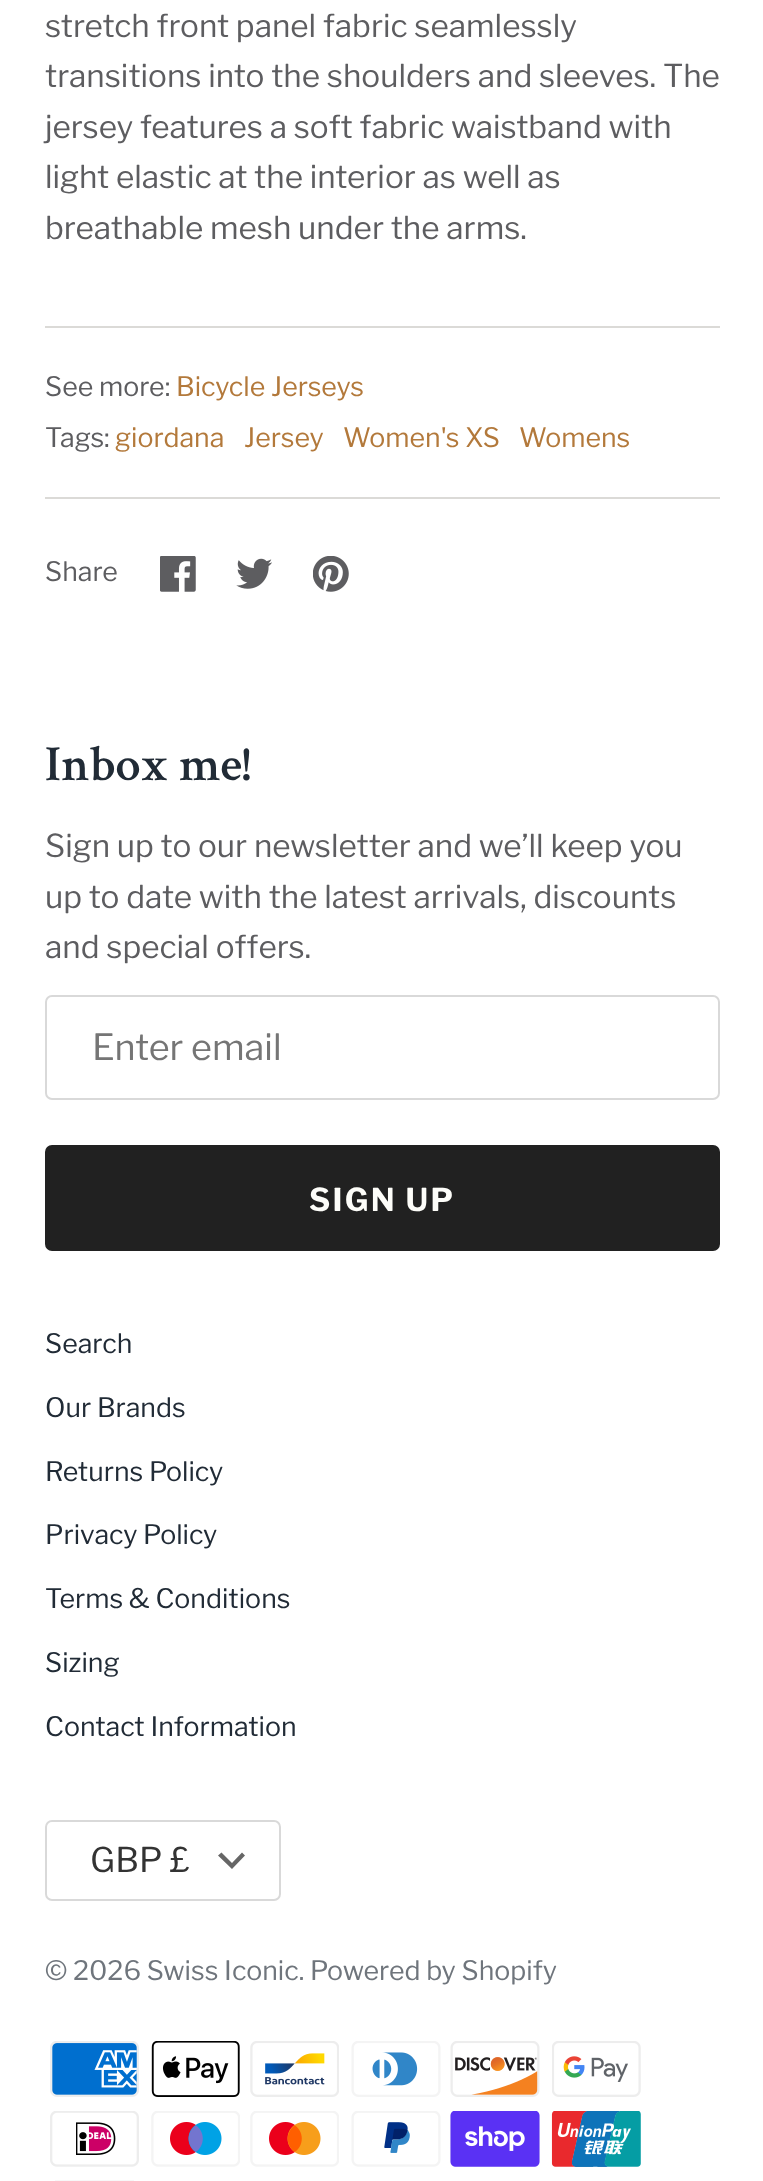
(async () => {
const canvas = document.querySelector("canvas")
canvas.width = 763
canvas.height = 2181
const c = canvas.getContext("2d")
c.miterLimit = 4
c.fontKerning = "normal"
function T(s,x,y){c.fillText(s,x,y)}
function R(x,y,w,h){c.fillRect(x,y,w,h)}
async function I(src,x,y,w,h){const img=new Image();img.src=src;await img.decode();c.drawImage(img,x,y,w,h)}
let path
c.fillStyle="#fff"
R(0,0,763,2181)
c.font="31.5px Libre Franklin"
c.fillStyle="#5d5d60"
T("stretch front panel fabric seamlessly",45,37)
T("transitions into the shoulders and sleeves. The",45,87)
T("jersey features a soft fabric waistband with",45,138)
T("light elastic at the interior as well as",45,188)
T("breathable mesh under the arms.",45,239)
c.fillStyle="#dbdad7"
R(45,326,675,2)
c.font="26.75px Libre Franklin"
c.fillStyle="#5d5d60"
T("See more:",45,396)
c.fillStyle="#b3793b"
T("Bicycle Jerseys",176,396)
c.fillStyle="#5d5d60"
T("Tags:",45,447)
c.fillStyle="#b3793b"
T("giordana",115,447)
T("Jersey",244,447)
T("Women's XS",343,447)
T("Womens",519,447)
c.fillStyle="#dbdad7"
R(45,497,675,2)
c.fillStyle="#5d5d60"
T("Share",45,581)
await I("1.png",160,556,36,36)
await I("2.png",236,558,36,31)
await I("3.png",313,556,36,36)
c.font="600 50.5px Crimson Text"
c.fillStyle="#212b36"
T("Inbox me!",45,780)
c.font="31.5px Libre Franklin"
c.fillStyle="#5d5d60"
T("Sign up to our newsletter and we’ll keep you",45,857)
T("up to date with the latest arrivals, discounts",45,908)
T("and special offers.",45,958)
c.beginPath()
c.roundRect(46,996,673,103,6)
c.strokeStyle="#d9d9d9"
c.lineWidth=2
c.stroke()
c.font="36px Libre Franklin"
c.fillStyle="#757575"
T("Enter email",92,1060)
c.fillStyle="#212121"
c.beginPath()
c.roundRect(46,1146,673,104,6)
c.fill()
c.strokeStyle="#212121"
c.stroke()
c.letterSpacing="2.25px"
c.font="bold 31.5px Libre Franklin"
c.fillStyle="#fdfdf9"
T("SIGN UP",309,1211)
c.letterSpacing="0px"
c.font="26.75px Libre Franklin"
c.fillStyle="#212b36"
T("Search",45,1353)
T("Our Brands",45,1417)
T("Returns Policy",45,1481)
T("Privacy Policy",45,1544)
T("Terms & Conditions",45,1608)
T("Sizing",45,1672)
T("Contact Information",45,1736)
c.beginPath()
c.roundRect(46,1821,234,79,6)
c.strokeStyle="#d9d9d9"
c.stroke()
c.font="34px Libre Franklin"
c.fillStyle="#333"
T("GBP £",90,1872)
c.fillStyle="#666"
path = new Path2D("M221.5 1852.5l10.5 10.5l10-10.5l3 3l-13 13.5l-14-13.5z")
c.fill(path)
c.font="26.75px Libre Franklin"
c.fillStyle="#6f757c"
T("© 2026 Swiss Iconic. Powered by Shopify",45,1980)
await I("4.png",50,2041,89,56)
await I("5.png",151,2041,89,56)
await I("6.png",250,2041,89,56)
await I("7.png",351,2041,90,56)
await I("8.png",450,2041,90,56)
await I("9.png",552,2041,89,56)
await I("10.png",50,2111,89,56)
await I("11.png",151,2111,89,56)
await I("12.png",250,2111,89,56)
await I("13.png",351,2111,90,56)
await I("14.png",450,2111,90,56)
await I("15.png",551,2111,90,56)
c.fillStyle="#f7f7f7"
R(55,2180,79,1)
})()
